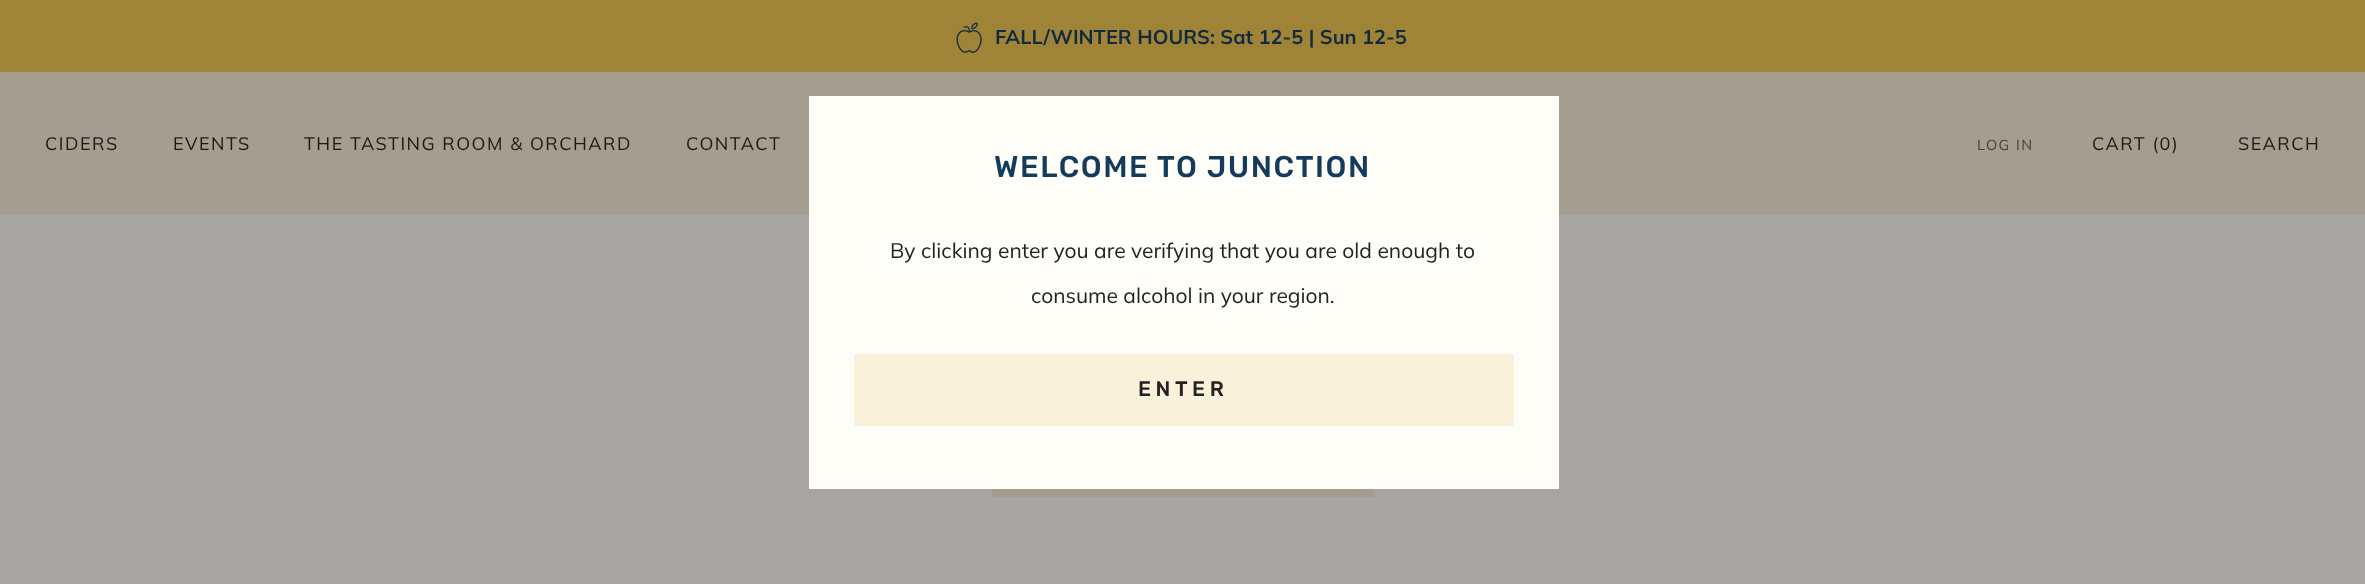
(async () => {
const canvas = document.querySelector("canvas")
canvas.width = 2365
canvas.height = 584
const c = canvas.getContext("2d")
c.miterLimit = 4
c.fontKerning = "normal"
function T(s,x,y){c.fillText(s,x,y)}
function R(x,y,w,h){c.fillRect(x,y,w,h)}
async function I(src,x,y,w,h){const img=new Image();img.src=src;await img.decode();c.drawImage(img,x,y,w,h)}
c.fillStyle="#a7a6a3"
R(0,0,2365,584)
c.fillStyle="#9f8438"
R(0,0,2365,72)
await I("1.png",956,22,26,31)
c.font="bold 19.95px Muli"
c.fillStyle="#112a3f"
T("FALL/WINTER HOURS: Sat 12-5 | Sun 12-5",995,44)
c.fillStyle="#a39e8f"
R(0,72,2365,143)
c.letterSpacing="1.5px"
c.font="18px Muli"
c.fillStyle="#1a1a1a"
T("CIDERS",45,150)
T("EVENTS",173,150)
T("THE TASTING ROOM & ORCHARD",304,150)
T("CONTACT",686,150)
c.font="14.5px Muli"
c.fillStyle="#43413d"
T("LOG IN",1977,150)
c.font="18px Muli"
c.fillStyle="#1a1a1a"
T("CART (0)",2092,150)
T("SEARCH",2238,150)
c.fillStyle="#a39e8f"
R(992,489,382,8)
c.fillStyle="#fffdf8"
R(809,96,750,393)
c.font="500 30px Rubik"
c.fillStyle="#143b5c"
T("WELCOME TO JUNCTION",994,177)
c.letterSpacing="0px"
c.font="21px Muli"
c.fillStyle="#222"
T("By clicking enter you are verifying that you are old enough to",890,258)
T("consume alcohol in your region.",1031,303)
c.fillStyle="#f9f1da"
R(854,354,660,72)
c.letterSpacing="4.5px"
c.font="500 21px Rubik"
c.fillStyle="#222"
T("ENTER",1138,396)
})()
